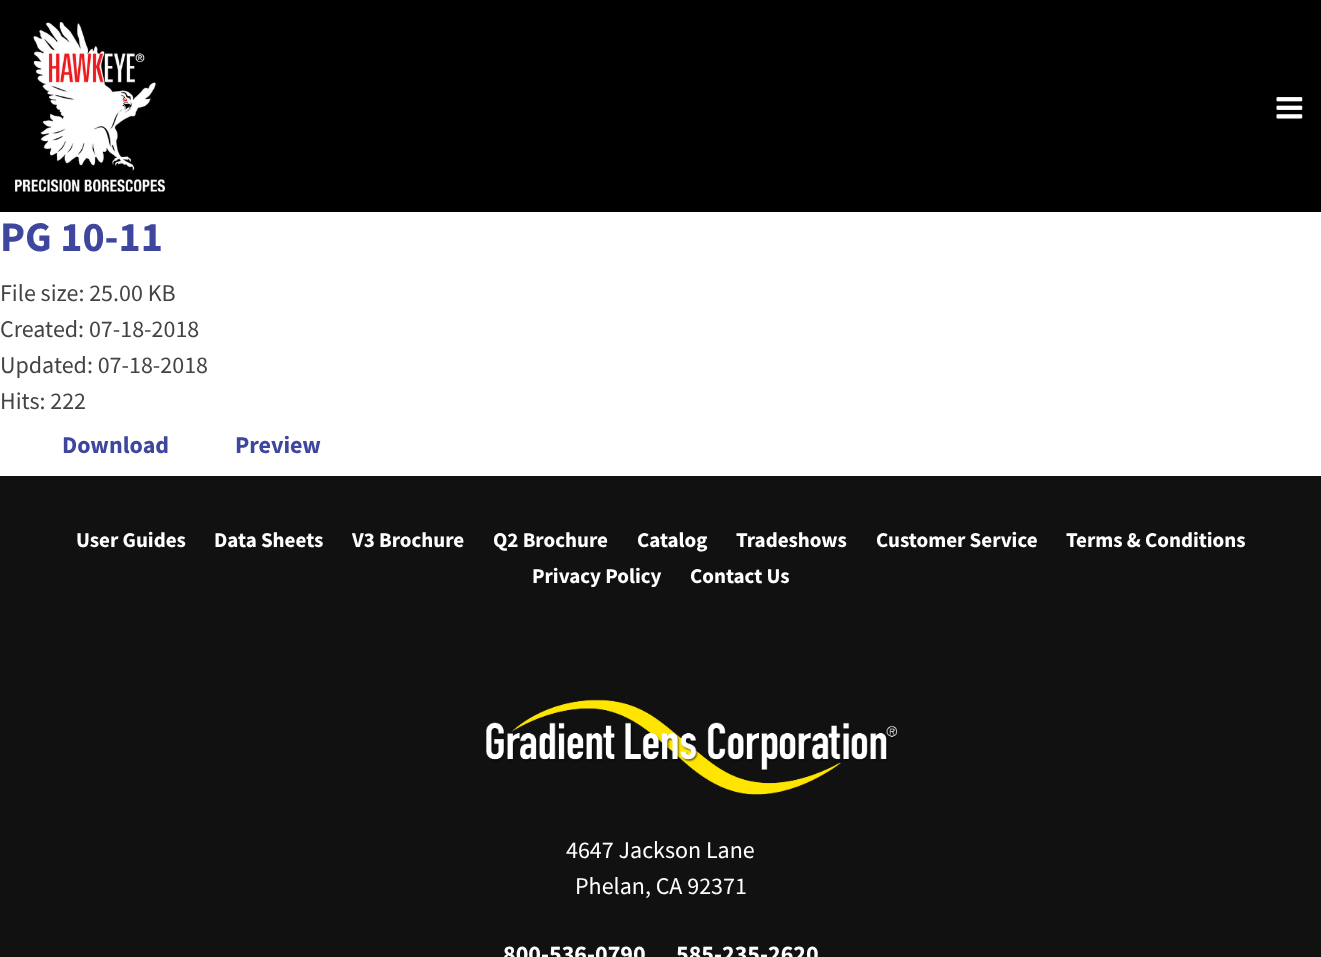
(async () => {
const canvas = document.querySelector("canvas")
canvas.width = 1321
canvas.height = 957
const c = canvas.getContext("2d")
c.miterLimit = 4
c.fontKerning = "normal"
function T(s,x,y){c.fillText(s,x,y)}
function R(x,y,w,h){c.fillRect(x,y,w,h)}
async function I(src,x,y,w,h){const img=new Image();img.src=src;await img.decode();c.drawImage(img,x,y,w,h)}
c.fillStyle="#fff"
R(0,0,1321,957)
c.fillStyle="#000"
R(0,0,1321,212)
await I("1.png",15,22,150,170)
await I("2.png",1276,97,27,22)
c.font="bold 42px Source Sans Pro"
c.fillStyle="#3f469d"
T("PG 10-11",0,251)
c.font="24px Source Sans Pro"
c.fillStyle="#444"
T("File size: 25.00 KB",0,301)
T("Created: 07-18-2018",0,337)
T("Updated: 07-18-2018",0,373)
T("Hits: 222",0,409)
c.font="bold 24px Source Sans Pro"
c.fillStyle="#3f469d"
T("Download",62,453)
T("Preview",235,453)
c.fillStyle="#111"
R(0,476,1321,481)
c.font="bold 21px Source Sans Pro"
c.fillStyle="#fff"
T("User Guides",76,547)
T("Data Sheets",214,547)
T("V3 Brochure",352,547)
T("Q2 Brochure",493,547)
T("Catalog",637,547)
T("Tradeshows",736,547)
T("Customer Service",876,547)
T("Terms & Conditions",1066,547)
T("Privacy Policy",532,583)
T("Contact Us",690,583)
await I("3.png",486,699,412,96)
c.font="24px Source Sans Pro"
T("4647 Jackson Lane",566,858)
T("Phelan, CA 92371",575,894)
c.font="bold 24px Source Sans Pro"
T("800-536-0790",503,962)
T("585-235-2620",676,962)
})()
